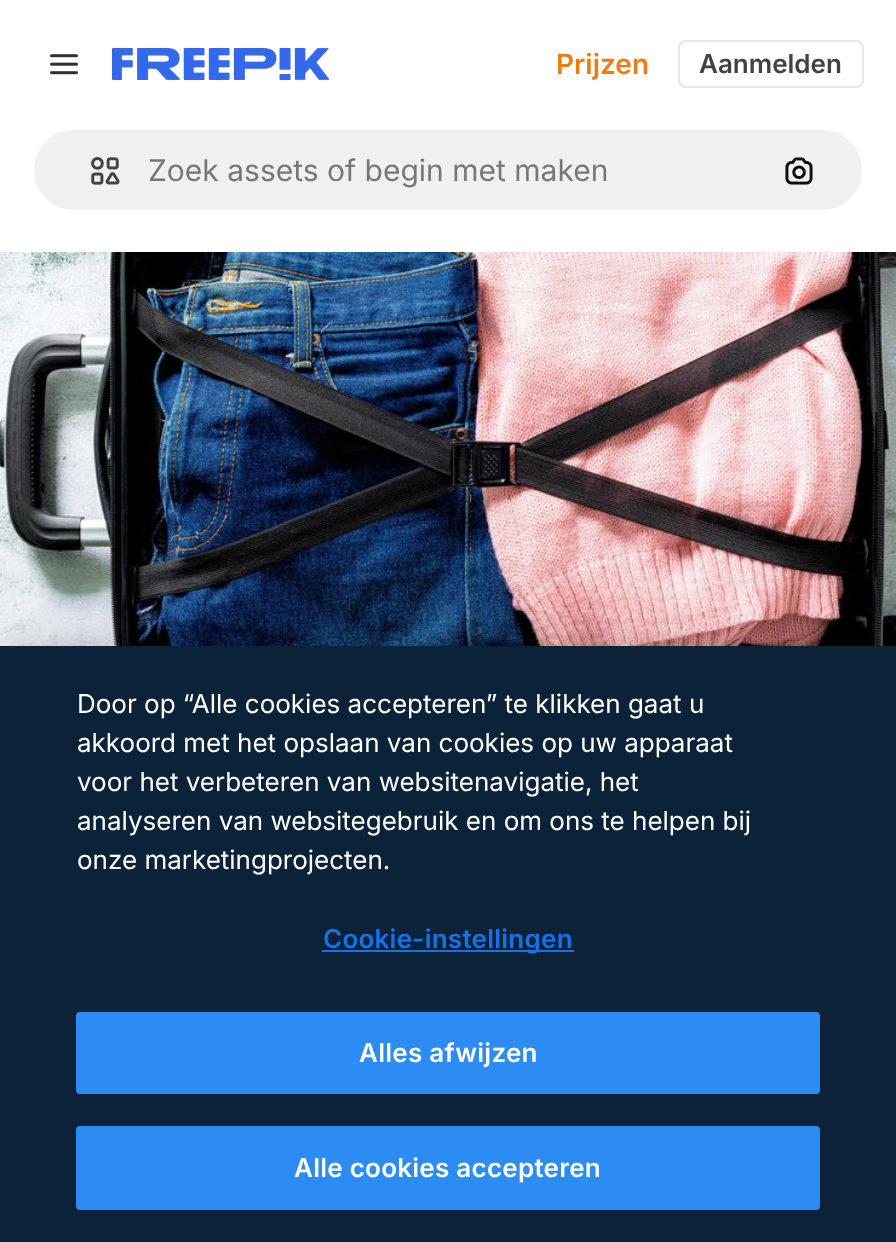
(async () => {
const canvas = document.querySelector("canvas")
canvas.width = 896
canvas.height = 1242
const c = canvas.getContext("2d")
c.miterLimit = 4
c.fontKerning = "normal"
function T(s,x,y){c.fillText(s,x,y)}
function R(x,y,w,h){c.fillRect(x,y,w,h)}
async function I(src,x,y,w,h){const img=new Image();img.src=src;await img.decode();c.drawImage(img,x,y,w,h)}
c.fillStyle="#fff"
R(0,0,896,1242)
await I("1.png",50,54,28,21)
await I("2.png",112,48,218,32)
c.font="600 28px Inter"
c.fillStyle="#ea7e11"
T("Prijzen",556,74)
c.beginPath()
c.roundRect(679,41,184,46,7)
c.strokeStyle="#e7e7e7"
c.lineWidth=2
c.stroke()
c.font="600 26px Inter"
c.fillStyle="#424242"
T("Aanmelden",699,73)
c.fillStyle="#f0f0f0"
c.beginPath()
c.roundRect(33,129,830,82,41)
c.fill()
c.strokeStyle="#fff"
c.stroke()
await I("3.png",91,157,29,28)
c.font="30px Inter"
c.fillStyle="#777"
T("Zoek assets of begin met maken",148,181)
await I("4.png",785,157,28,28)
await I("5.png",0,252,896,394)
c.fillStyle="#00000033"
c.filter="blur(18px)"
c.beginPath()
c.rect(0,646,896,596)
c.fill()
c.filter="none"
c.fillStyle="#0b2239"
R(0,646,896,596)
c.font="26px Inter"
c.fillStyle="#fff"
T("Door op “Alle cookies accepteren” te klikken gaat u",77,713)
T("akkoord met het opslaan van cookies op uw apparaat",77,752)
T("voor het verbeteren van websitenavigatie, het",77,791)
T("analyseren van websitegebruik en om ons te helpen bij",77,830)
T("onze marketingprojecten.",77,869)
c.fillStyle="#1273eb"
R(322,950,252,2)
c.letterSpacing="0.25px"
c.font="600 26px Inter"
T("Cookie-instellingen",323,948)
c.fillStyle="#2c8cf4"
c.beginPath()
c.roundRect(77,1013,742,80,3)
c.fill()
c.strokeStyle="#2c8cf4"
c.stroke()
c.fillStyle="#fff"
T("Alles afwijzen",359,1062)
c.fillStyle="#2c8cf4"
c.beginPath()
c.roundRect(77,1127,742,82,3)
c.fill()
c.stroke()
c.fillStyle="#fff"
T("Alle cookies accepteren",294,1177)
})()
